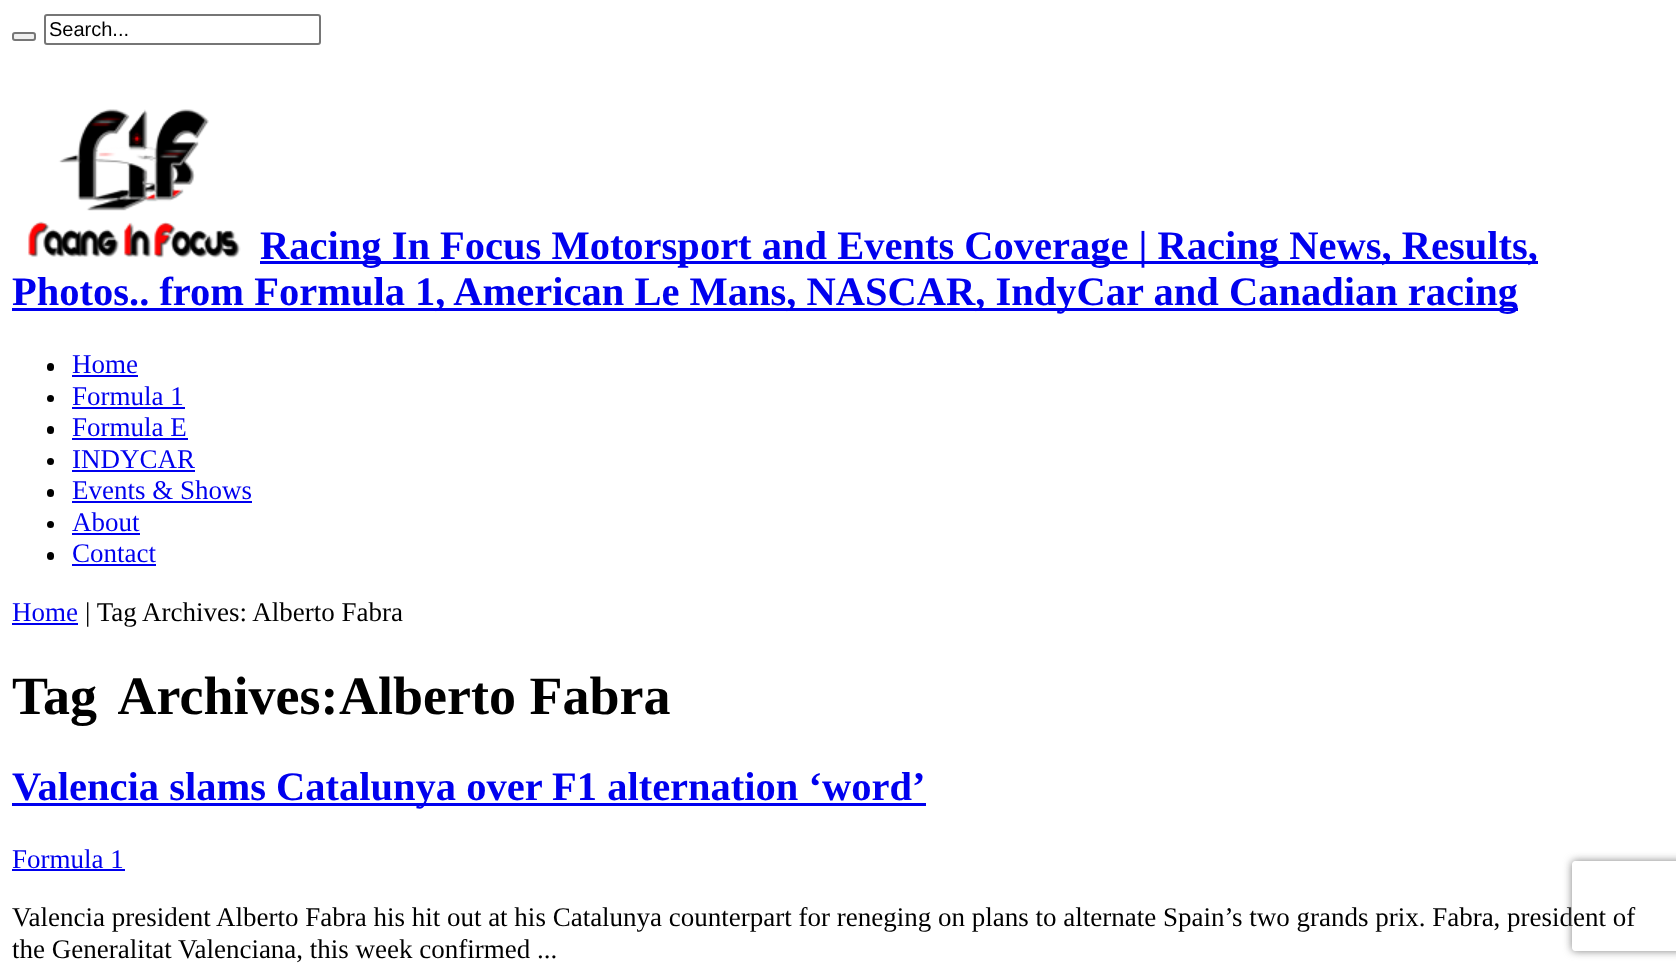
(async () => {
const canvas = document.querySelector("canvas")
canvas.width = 1676
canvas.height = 972
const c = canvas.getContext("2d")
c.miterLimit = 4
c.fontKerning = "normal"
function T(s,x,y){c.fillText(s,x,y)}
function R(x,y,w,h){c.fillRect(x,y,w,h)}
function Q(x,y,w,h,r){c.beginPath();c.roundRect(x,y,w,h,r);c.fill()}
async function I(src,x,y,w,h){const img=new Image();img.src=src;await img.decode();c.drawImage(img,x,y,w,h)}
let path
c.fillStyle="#fff"
R(0,0,1676,972)
c.fillStyle="#efefef"
c.beginPath()
c.roundRect(13,33,22,7,2)
c.fill()
c.strokeStyle="#767676"
c.lineWidth=2
c.stroke()
c.beginPath()
c.roundRect(45,15,275,29,2)
c.stroke()
c.font="20px Liberation Sans"
c.fillStyle="#000"
T("Search...",49,36)
await I("1.png",28,109,213,149)
c.fillStyle="#00e"
R(260,261,1278,3)
c.font="bold 40.5px Liberation Serif"
T("Racing In Focus Motorsport and Events Coverage | Racing News, Results,",260,259)
R(12,308,1506,3)
T("Photos.. from Formula 1, American Le Mans, NASCAR, IndyCar and Canadian racing",12,305)
c.fillStyle="#000"
Q(47,363,7,8,3.5)
c.font="27px Liberation Serif"
c.fillStyle="#00e"
T("Home",72,373)
R(72,375,66,2)
c.fillStyle="#000"
c.beginPath()
c.arc(50.5,398.5,3.5,0,7)
c.fill()
c.fillStyle="#00e"
T("Formula 1",72,405)
R(72,407,113,2)
c.fillStyle="#000"
Q(47,426,7,8,3.5)
c.fillStyle="#00e"
T("Formula E",72,436)
R(72,438,116,2)
c.fillStyle="#000"
c.beginPath()
c.arc(50.5,461.5,3.5,0,7)
c.fill()
c.fillStyle="#00e"
T("INDYCAR",72,468)
R(72,470,123,2)
c.fillStyle="#000"
Q(47,489,7,8,3.5)
c.fillStyle="#00e"
T("Events & Shows",72,499)
R(72,501,180,2)
c.fillStyle="#000"
c.beginPath()
c.arc(50.5,524.5,3.5,0,7)
c.fill()
c.fillStyle="#00e"
T("About",72,531)
R(72,533,68,2)
c.fillStyle="#000"
Q(47,552,7,8,3.5)
c.fillStyle="#00e"
T("Contact",72,562)
R(72,564,84,2)
T("Home",12,621)
R(12,623,66,2)
c.fillStyle="#000"
T("| Tag Archives: Alberto Fabra",85,621)
c.wordSpacing="10px"
c.font="bold 54px Liberation Serif"
T("Tag Archives:",12,714)
c.wordSpacing="0px"
T("Alberto Fabra",339,714)
c.fillStyle="#00e"
R(12,803,914,3)
c.font="bold 40.5px Liberation Serif"
T("Valencia slams Catalunya over F1 alternation ‘word’",12,800)
c.font="27px Liberation Serif"
T("Formula 1",12,868)
R(12,869,113,2)
c.fillStyle="#000"
T("Valencia president Alberto Fabra his hit out at his Catalunya counterpart for reneging on plans to alternate Spain’s two grands prix. Fabra, president of",12,926)
T("the Generalitat Valenciana, this week confirmed ...",12,958)
c.save()
path = new Path2D("M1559 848h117v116h-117zm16 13h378c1.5 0 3 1.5 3 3v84c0 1.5-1.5 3-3 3h-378c-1.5 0-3-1.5-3-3v-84c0-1.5 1.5-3 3-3z")
c.clip(path,"evenodd")
c.fillStyle="#808080"
c.filter="blur(4px)"
c.beginPath()
c.roundRect(1572,861,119,90,3)
c.fill()
c.filter="none"
c.restore()
})()
